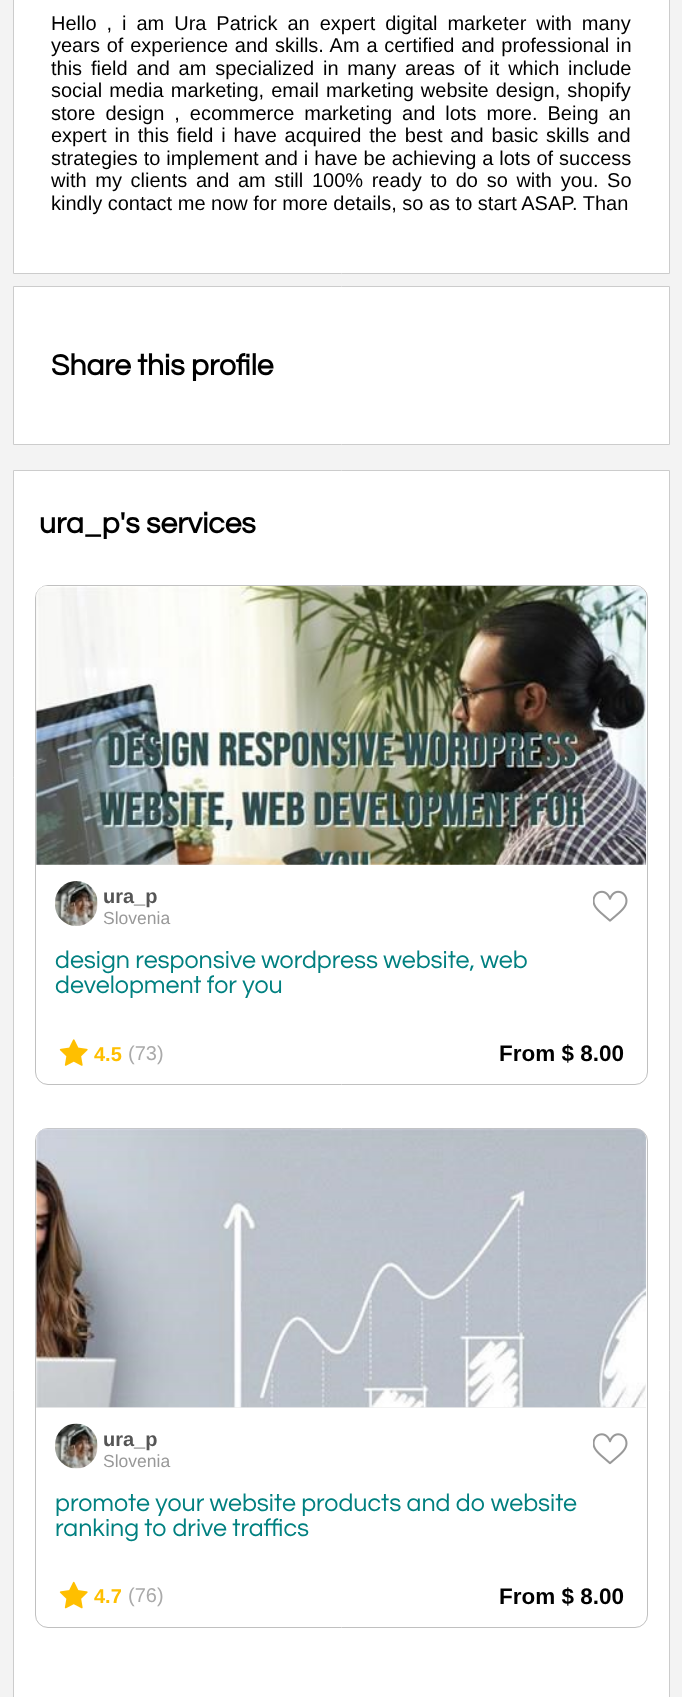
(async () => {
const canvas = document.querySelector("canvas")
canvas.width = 682
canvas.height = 1697
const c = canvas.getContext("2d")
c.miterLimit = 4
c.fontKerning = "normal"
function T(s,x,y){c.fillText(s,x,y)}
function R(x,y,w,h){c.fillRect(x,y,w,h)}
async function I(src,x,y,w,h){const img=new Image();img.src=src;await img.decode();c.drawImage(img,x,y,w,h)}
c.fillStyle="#f3f3f3"
R(0,0,682,1697)
c.fillStyle="#fff"
c.beginPath()
c.rect(13.5,-.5,656,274)
c.fill()
c.strokeStyle="#ccc"
c.stroke()
c.wordSpacing="4.4px"
c.font="20px Liberation Sans"
c.fillStyle="#000"
T("Hello , i am Ura Patrick an expert digital marketer with many",51,30)
c.wordSpacing="1.25px"
T("years of experience and skills. Am a certified and professional in",51,52)
c.wordSpacing="3.25px"
T("this field and am specialized in many areas of it which include",51,75)
c.wordSpacing="1.5px"
T("social media marketing, email marketing website design, shopify",51,97)
c.wordSpacing="4.4px"
T("store design , ecommerce marketing and lots more. Being an",51,120)
c.wordSpacing="2.25px"
T("expert in this field i have acquired the best and basic skills and",51,142)
c.wordSpacing="0.4px"
T("strategies to implement and i have be achieving a lots of success",51,165)
c.wordSpacing="3.1px"
T("with my clients and am still 100% ready to do so with you. So",51,187)
c.wordSpacing="0px"
T("kindly contact me now for more details, so as to start ASAP. Than",51,210)
c.fillStyle="#fff"
c.beginPath()
c.rect(13.5,286.5,656,158)
c.fill()
c.stroke()
c.font="bold 30px Questrial"
c.fillStyle="#000"
T("Share this profile",51,375)
c.fillStyle="#fff"
c.beginPath()
c.rect(13.5,470.5,656,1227)
c.fill()
c.stroke()
c.fillStyle="#000"
T("ura_p's services",39,533)
c.beginPath()
c.roundRect(35.5,585.5,612,499,12.5)
c.strokeStyle="#c0c0c0"
c.stroke()
c.fillStyle="#eee"
c.beginPath()
c.roundRect(36,586,610,279,[11,11,0,0])
c.fill()
await I("1.png",36,586,611,279)
await I("2.png",55,881,43,45)
c.font="bold 20px Liberation Sans"
c.fillStyle="#555"
T("ura_p",103,903)
c.font="17.5px Liberation Sans"
c.fillStyle="#999"
T("Slovenia",103,924)
await I("3.png",593,890,35,32)
c.font="25px Questrial"
c.fillStyle="#008080"
T("design responsive wordpress website, web",55,968)
T("development for you",55,993)
await I("4.png",59,1039,29,27)
c.font="bold 20px Liberation Sans"
c.fillStyle="#ffbf00"
T("4.5",94,1061)
c.font="20px Liberation Sans"
c.fillStyle="#aaa"
T("(73)",128,1060)
c.font="bold 22.5px Liberation Sans"
c.fillStyle="#000"
T("From $ 8.00",499,1061)
c.beginPath()
c.roundRect(35.5,1128.5,612,499,12.5)
c.stroke()
c.fillStyle="#eee"
c.beginPath()
c.roundRect(36,1129,610,279,[11,11,0,0])
c.fill()
await I("5.png",36,1128,611,280)
await I("6.png",55,1423,43,46)
c.font="bold 20px Liberation Sans"
c.fillStyle="#555"
T("ura_p",103,1446)
c.font="17.5px Liberation Sans"
c.fillStyle="#999"
T("Slovenia",103,1467)
await I("7.png",593,1433,35,32)
c.font="25px Questrial"
c.fillStyle="#008080"
T("promote your website products and do website",55,1511)
T("ranking to drive traffics",55,1536)
await I("8.png",59,1581,29,28)
c.font="bold 20px Liberation Sans"
c.fillStyle="#ffbf00"
T("4.7",94,1603)
c.font="20px Liberation Sans"
c.fillStyle="#aaa"
T("(76)",128,1602)
c.font="bold 22.5px Liberation Sans"
c.fillStyle="#000"
T("From $ 8.00",499,1604)
})()
